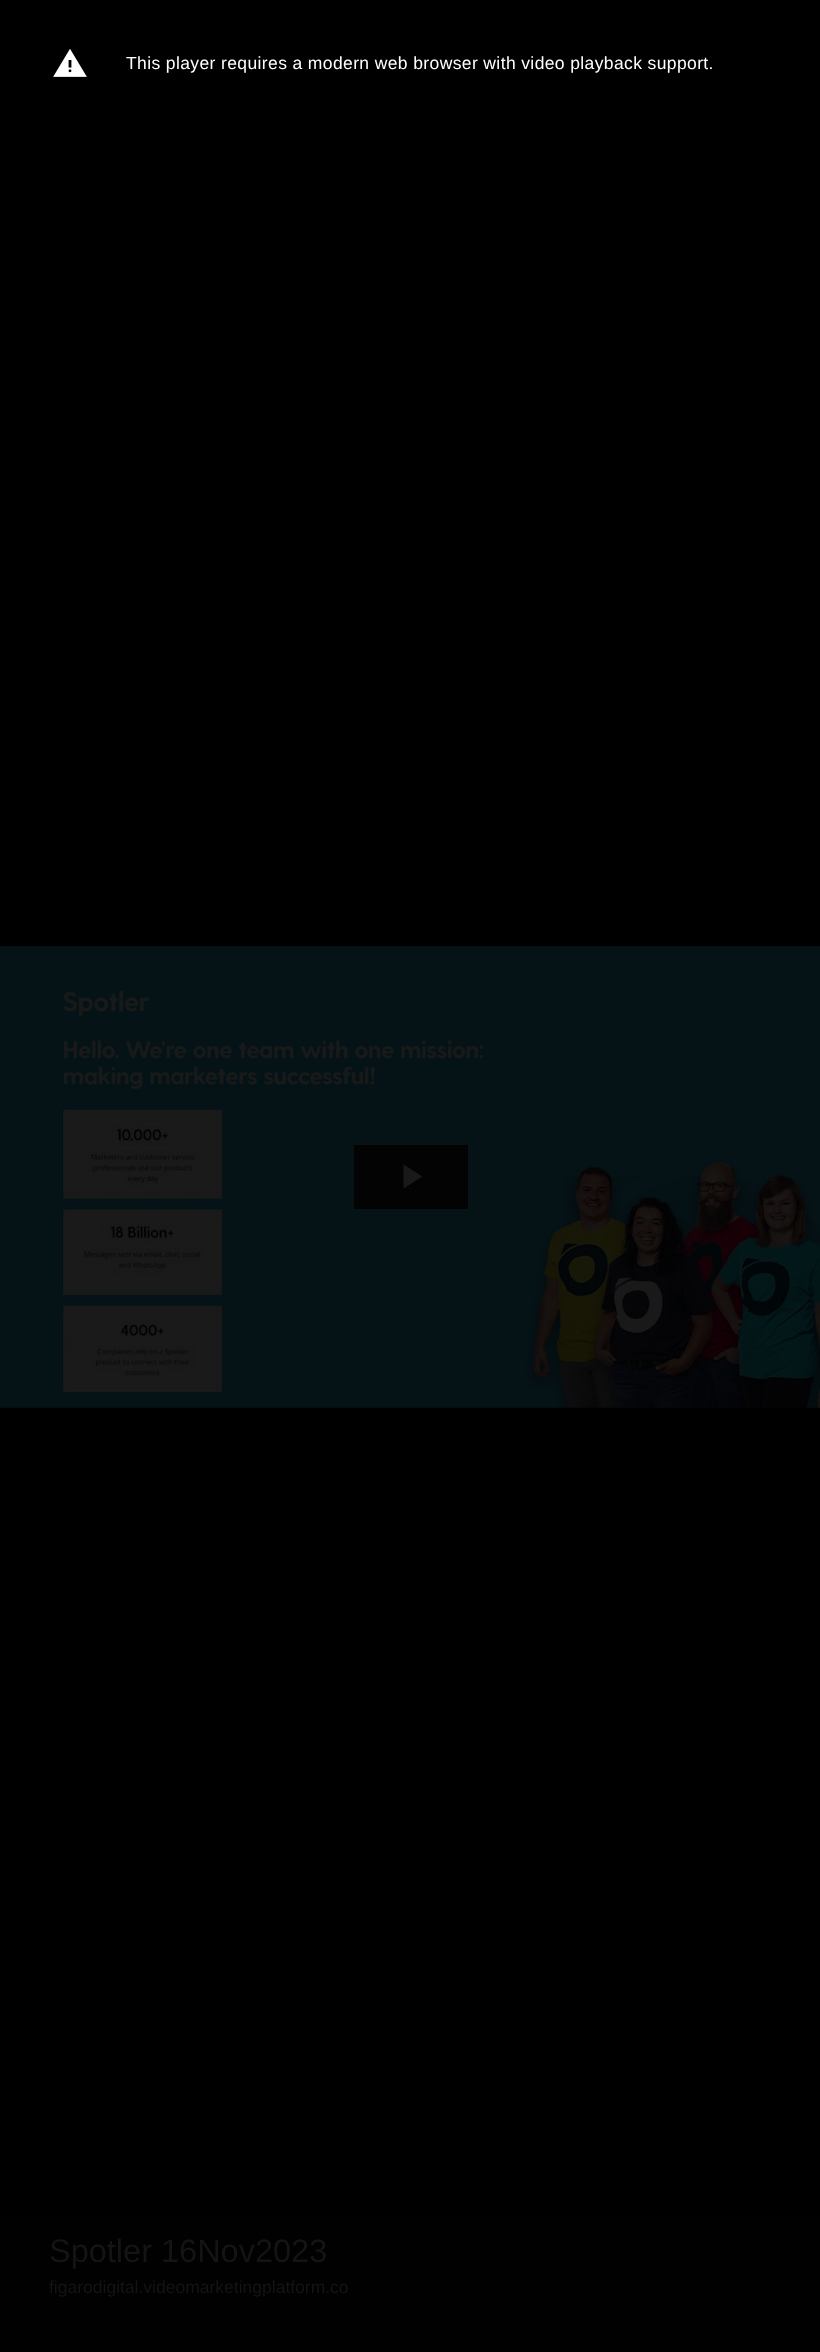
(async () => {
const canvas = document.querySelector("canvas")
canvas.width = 820
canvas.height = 2352
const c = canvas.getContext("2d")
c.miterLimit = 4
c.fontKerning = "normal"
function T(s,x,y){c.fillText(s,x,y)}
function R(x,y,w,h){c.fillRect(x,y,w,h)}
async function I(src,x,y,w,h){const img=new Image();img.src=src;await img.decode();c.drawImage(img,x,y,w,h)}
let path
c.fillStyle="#000"
R(0,0,820,2352)
await I("1.png",53,49,34,28)
c.letterSpacing="0.38px"
c.font="17.5px Liberation Sans"
c.fillStyle="#fff"
T("This player requires a modern web browser with video playback support.",126,69)
await I("2.png",0,946,820,462)
await I("3.png",0,946,820,462)
c.fillStyle="#030303"
R(354,1145,114,64)
c.fillStyle="#191919"
path = new Path2D("M403.5 1164.5v24l19-12z")
c.fill(path)
await I("4.png",0,2201,820,151)
c.letterSpacing="0px"
c.font="32.5px Liberation Sans"
c.fillStyle="#141414"
T("Spotler 16Nov2023",49,2262)
c.font="17.5px Liberation Sans"
T("figarodigital.videomarketingplatform.co",49,2293)
})()
